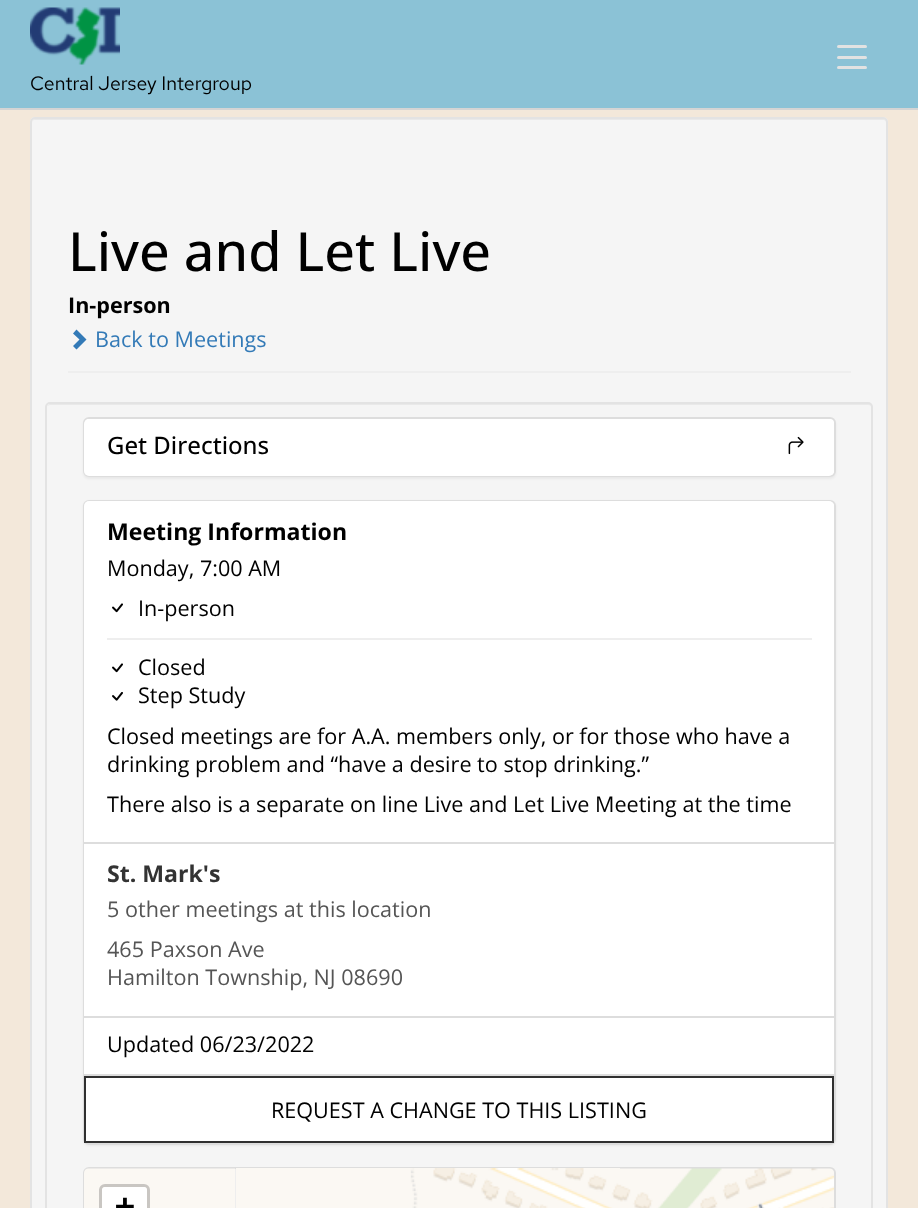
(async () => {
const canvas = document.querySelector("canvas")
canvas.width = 918
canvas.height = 1208
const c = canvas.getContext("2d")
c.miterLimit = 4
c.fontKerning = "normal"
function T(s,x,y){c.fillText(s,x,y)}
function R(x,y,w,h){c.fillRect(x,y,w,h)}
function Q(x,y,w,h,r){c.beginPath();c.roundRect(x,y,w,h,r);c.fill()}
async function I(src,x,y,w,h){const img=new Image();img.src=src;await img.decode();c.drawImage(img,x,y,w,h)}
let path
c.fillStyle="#f3e8da"
R(0,0,918,1208)
c.fillStyle="#8bc2d6"
R(0,0,918,108)
c.fillStyle="#d4d4d4"
R(0,108,918,2)
c.fillStyle="#e2e2e2"
Q(837,45,30,3,1.5)
Q(837,56,30,3,1.5)
Q(837,66,30,3,1.5)
await I("1.png",30,7,90,58)
c.font="19.5px Red Hat Text"
c.fillStyle="#000"
T("Central Jersey Intergroup",30,90)
c.fillStyle="#f5f5f5"
Q(30,117,858,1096,5)
c.fillStyle="#e9e9e9"
path = new Path2D("M34 120h850c1 0 2 1 2 3v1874c1 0 1-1 1-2v-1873c0-2-1-3-3-3h-849c-2 0-3 1-3 3v1c0-2 1-3 2-3z")
c.fill(path)
c.beginPath()
c.roundRect(31,118,856,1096,4)
c.strokeStyle="#e3e3e3"
c.lineWidth=2
c.stroke()
c.fillStyle="#eee"
R(68,371,783,2)
c.font="500 54px Open Sans"
c.fillStyle="#000"
T("Live and Let Live",68,271)
c.font="bold 21.6px Open Sans"
T("In-person",68,313)
c.fillStyle="#337ab7"
path = new Path2D("M86.5 339.5l-10 10l-3.5-3.5l6.5-6.5l-6.5-6l3.5-4z")
c.fill(path)
c.font="21.6px Open Sans"
T("Back to Meetings",95,347)
c.fillStyle="#e9e9e9"
path = new Path2D("M50 405h818c2 0 4 1 4 3l-1-3l-1-1h-820c-1 0-2 1-3 2z")
c.fill(path)
c.beginPath()
c.roundRect(46,403,826,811,4)
c.stroke()
c.fillStyle="#0000000d"
c.filter="blur(1px)"
c.beginPath()
c.roundRect(83,419,753,60,6)
c.fill()
c.filter="none"
c.fillStyle="#fff"
c.beginPath()
c.roundRect(84,418,751,58,5)
c.fill()
c.strokeStyle="#ddd"
c.stroke()
Q(84,419,750,57,5)
c.font="500 24px Open Sans"
c.fillStyle="#000"
T("Get Directions",107,454)
await I("2.png",788,436,16,19)
c.fillStyle="#0000000d"
c.filter="blur(1px)"
c.beginPath()
c.roundRect(83,501,753,645,6)
c.fill()
c.filter="none"
c.fillStyle="#fff"
c.beginPath()
c.roundRect(84,501,751,643,5)
c.fill()
c.stroke()
c.beginPath()
c.roundRect(84,501,750,342,[5,5,0,0])
c.fill()
c.font="bold 23.1px Open Sans"
c.fillStyle="#000"
T("Meeting Information",107,540)
c.font="21.6px Open Sans"
T("Monday, 7:00 AM",107,576)
await I("3.png",112,603,11,10)
T("In-person",138,616)
c.fillStyle="#eee"
R(107,638,705,2)
await I("3.png",112,663,11,10)
c.fillStyle="#000"
T("Closed",138,675)
await I("4.png",112,692,11,9)
T("Step Study",138,703)
T("Closed meetings are for A.A. members only, or for those who have a",107,744)
T("drinking problem and “have a desire to stop drinking.”",107,772)
T("There also is a separate on line Live and Let Live Meeting at the time",107,812)
c.fillStyle="#fff"
R(84,844,1,172)
c.fillStyle="#ddd"
R(84,842,750,2)
c.font="bold 23.1px Open Sans"
c.fillStyle="#333"
T("St. Mark's",107,882)
c.font="21.6px Open Sans"
c.fillStyle="#555"
T("5 other meetings at this location",107,917)
T("465 Paxson Ave",107,957)
T("Hamilton Township, NJ 08690",107,985)
c.fillStyle="#fff"
R(84,1018,1,56)
c.fillStyle="#ddd"
R(84,1016,750,2)
R(84,1074,750,2)
c.fillStyle="#000"
T("Updated 06/23/2022",107,1052)
c.strokeStyle="#303030"
c.strokeRect(85,1077,748,65)
T("REQUEST A CHANGE TO THIS LISTING",271,1118)
c.fillStyle="#eee"
c.beginPath()
c.roundRect(84,1168,751,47,5)
c.fill()
c.strokeStyle="#ddd"
c.stroke()
await I("5.png",84,1168,151,40)
await I("6.png",236,1168,384,40)
await I("7.png",620,1168,214,40)
c.beginPath()
c.roundRect(100.5,1185.5,48,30,4.5)
c.strokeStyle="#c9c6c2"
c.lineWidth=3
c.stroke()
c.fillStyle="#fff"
path = new Path2D("M105 1187h39c1.5 0 3 1.5 3 3v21h-45v-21c0-1.5 1.5-3 3-3z")
c.fill(path)
c.font="bold 33px DejaVu Sans Mono"
c.fillStyle="#000"
T("+",115,1217)
})()
